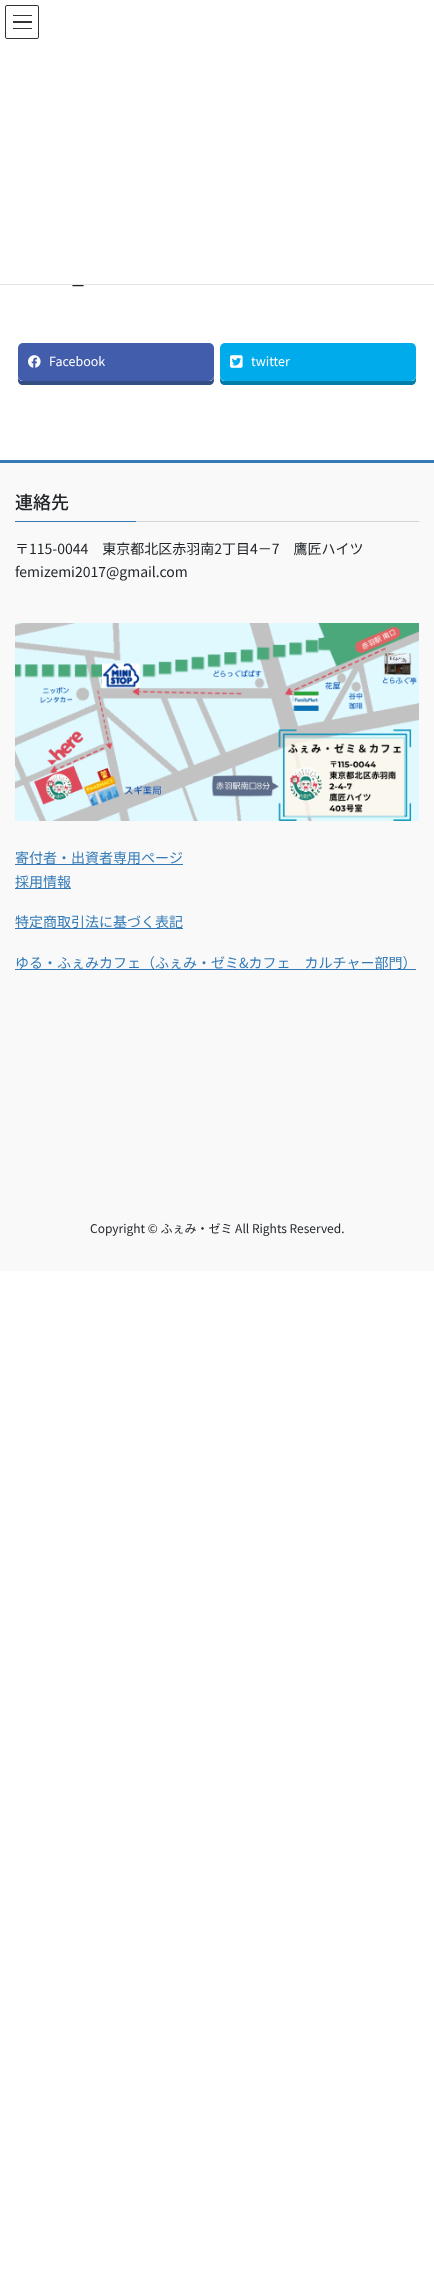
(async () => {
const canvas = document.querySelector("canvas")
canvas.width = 434
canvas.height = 2285
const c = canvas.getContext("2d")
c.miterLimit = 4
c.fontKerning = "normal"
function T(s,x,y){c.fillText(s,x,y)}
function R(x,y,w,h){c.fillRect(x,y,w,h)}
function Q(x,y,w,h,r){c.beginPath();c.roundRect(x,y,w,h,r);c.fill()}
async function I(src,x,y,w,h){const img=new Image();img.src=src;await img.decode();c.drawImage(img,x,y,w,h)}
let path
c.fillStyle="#fff"
R(0,0,434,2285)
c.fillStyle="#333"
R(13,15,19,1)
R(13,21,19,2)
R(13,28,19,1)
c.beginPath()
c.roundRect(5.5,5.5,33,33,1.5)
c.strokeStyle="#333"
c.stroke()
c.font="14px Noto Sans JP"
c.fillStyle="#212529"
T("ー",71,291)
c.fillStyle="#e5e5e5"
R(0,284,434,1)
c.fillStyle="#344e84"
path = new Path2D("M18 376v4c0 3 2 5 5 5h186c3 0 5-2 5-5v-4c0 3-2 5-5 5h-186c-3 0-5-2-5-5z")
c.fill(path)
c.fillStyle="#425dab"
Q(18,343,196,38,5)
await I("1.png",28,355,13,13)
c.font="12.5px Noto Sans JP"
c.fillStyle="#fff"
T("Facebook",49,366)
c.fillStyle="#007eaa"
path = new Path2D("M220 376v4c0 3 2 5 5 5h186c3 0 5-2 5-5v-4c0 3-2 5-5 5h-186c-3 0-5-2-5-5z")
c.fill(path)
c.fillStyle="#00abec"
Q(220,343,196,38,5)
await I("2.png",230,355,13,13)
c.fillStyle="#fff"
T("twitter",251,366)
c.fillStyle="#f9f9f9"
R(0,463,434,808)
c.fillStyle="#337ab7"
R(0,460,434,3)
c.fillStyle="#d4d4d4"
R(136,521,283,1)
c.font="500 18px Noto Sans JP"
c.fillStyle="#212529"
T("連絡先",15,509)
c.fillStyle="#337ab7"
R(15,521,121,1)
c.font="14px Noto Sans JP"
c.fillStyle="#212529"
T("〒115-0044　東京都北区赤羽南2丁目4－7　鷹匠ハイツ",15,554)
T("femizemi2017@gmail.com",15,577)
await I("3.png",15,623,404,198)
c.fillStyle="#337ab7"
R(15,864,168,1)
T("寄付者・出資者専用ページ",15,863)
R(15,888,56,1)
T("採用情報",15,887)
R(15,928,168,1)
T("特定商取引法に基づく表記",15,927)
R(15,969,401,1)
T("ゆる・ふぇみカフェ（ふぇみ・ゼミ&カフェ　カルチャー部門）",15,968)
c.font="12px Noto Sans JP"
c.fillStyle="#212529"
T("Copyright © ふぇみ・ゼミ All Rights Reserved.",90,1233)
})()
